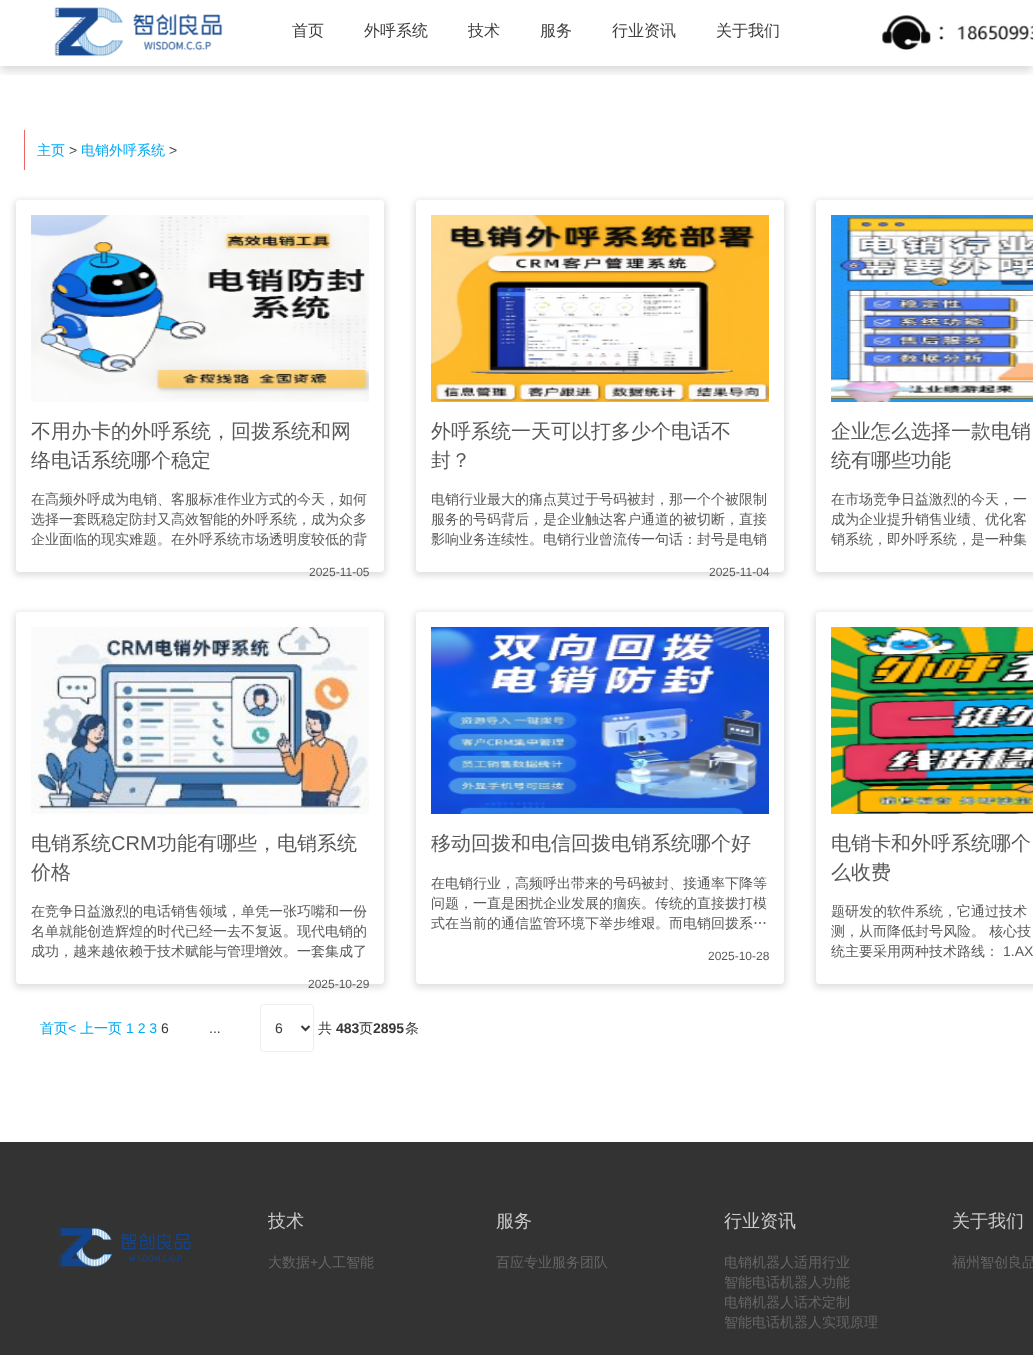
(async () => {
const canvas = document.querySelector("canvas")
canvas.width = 1033
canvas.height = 1355
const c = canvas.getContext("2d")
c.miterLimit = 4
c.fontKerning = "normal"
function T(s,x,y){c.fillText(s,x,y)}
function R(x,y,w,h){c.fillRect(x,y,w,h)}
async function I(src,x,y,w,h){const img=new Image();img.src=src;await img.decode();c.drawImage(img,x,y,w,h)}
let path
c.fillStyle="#fff"
R(0,0,1033,1355)
c.save()
c.beginPath()
c.rect(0,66,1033,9)
c.clip()
c.fillStyle="#08080826"
c.filter="blur(4px)"
c.beginPath()
c.rect(0,5,1033,66)
c.fill()
c.filter="none"
c.restore()
await I("1.png",54,7,169,50)
c.font="500 16px WenQuanYi Zen Hei"
c.fillStyle="#3e3e3e"
T("首页",292,36)
T("外呼系统",364,36)
T("技术",468,36)
T("服务",540,36)
T("行业资讯",612,36)
T("关于我们",716,36)
await I("2.png",882,15,151,35)
c.fillStyle="#ee6464"
R(24,130,1,40)
c.font="500 14px WenQuanYi Zen Hei"
c.fillStyle="#03a9f4"
T("主页",37,155)
c.font="14px Liberation Sans"
c.fillStyle="#474747"
T(">",69,155)
c.font="500 14px WenQuanYi Zen Hei"
c.fillStyle="#03a9f4"
T("电销外呼系统",81,155)
c.font="14px Liberation Sans"
c.fillStyle="#474747"
T(">",169,155)
c.save()
path = new Path2D("M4 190h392v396h-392zm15 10h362c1.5 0 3 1.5 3 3v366c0 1.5-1.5 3-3 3h-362c-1.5 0-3-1.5-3-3v-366c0-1.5 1.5-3 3-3z")
c.clip(path,"evenodd")
c.fillStyle="#e0e0e0"
c.filter="blur(3px)"
c.beginPath()
c.roundRect(14,200,372,376,5)
c.fill()
c.filter="none"
c.restore()
await I("3.png",31,215,338,187)
c.font="500 20px WenQuanYi Zen Hei"
c.fillStyle="#595959"
T("不用办卡的外呼系统，回拨系统和网",31,438)
T("络电话系统哪个稳定",31,467)
c.font="500 14px WenQuanYi Zen Hei"
T("在高频外呼成为电销、客服标准作业方式的今天，如何",31,504)
T("选择一套既稳定防封又高效智能的外呼系统，成为众多",31,524)
T("企业面临的现实难题。在外呼系统市场透明度较低的背",31,544)
c.font="12px Liberation Sans"
T("2025-11-05",309,576)
c.save()
path = new Path2D("M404 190h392v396h-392zm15 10h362c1.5 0 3 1.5 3 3v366c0 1.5-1.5 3-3 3h-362c-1.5 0-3-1.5-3-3v-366c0-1.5 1.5-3 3-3z")
c.clip(path,"evenodd")
c.fillStyle="#e0e0e0"
c.filter="blur(3px)"
c.beginPath()
c.roundRect(414,200,372,376,5)
c.fill()
c.filter="none"
c.restore()
await I("4.png",431,215,338,187)
c.font="500 20px WenQuanYi Zen Hei"
T("外呼系统一天可以打多少个电话不",431,438)
T("封？",431,467)
c.font="500 14px WenQuanYi Zen Hei"
T("电销行业最大的痛点莫过于号码被封，那一个个被限制",431,504)
T("服务的号码背后，是企业触达客户通道的被切断，直接",431,524)
T("影响业务连续性。电销行业曾流传一句话：封号是电销",431,544)
c.font="12px Liberation Sans"
T("2025-11-04",709,576)
c.save()
path = new Path2D("M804 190h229v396h-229zm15 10h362c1.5 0 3 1.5 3 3v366c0 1.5-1.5 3-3 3h-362c-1.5 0-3-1.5-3-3v-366c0-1.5 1.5-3 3-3z")
c.clip(path,"evenodd")
c.fillStyle="#e0e0e0"
c.filter="blur(3px)"
c.beginPath()
c.roundRect(814,200,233,376,5)
c.fill()
c.filter="none"
c.restore()
await I("5.png",831,215,202,187)
c.font="500 20px WenQuanYi Zen Hei"
T("企业怎么选择一款电销",831,438)
T("统有哪些功能",831,467)
c.font="500 14px WenQuanYi Zen Hei"
T("在市场竞争日益激烈的今天，一",831,504)
T("成为企业提升销售业绩、优化客",831,524)
T("销系统，即外呼系统，是一种集",831,544)
c.save()
path = new Path2D("M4 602h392v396h-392zm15 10h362c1.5 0 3 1.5 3 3v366c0 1.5-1.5 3-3 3h-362c-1.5 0-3-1.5-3-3v-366c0-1.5 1.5-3 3-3z")
c.clip(path,"evenodd")
c.fillStyle="#e0e0e0"
c.filter="blur(3px)"
c.beginPath()
c.roundRect(14,612,372,376,5)
c.fill()
c.filter="none"
c.restore()
await I("6.png",31,627,338,187)
c.font="500 20px WenQuanYi Zen Hei"
T("电销系统",31,850)
c.font="20px Liberation Sans"
T("CRM",111,850)
c.font="500 20px WenQuanYi Zen Hei"
T("功能有哪些，电销系统",157,850)
T("价格",31,879)
c.font="500 14px WenQuanYi Zen Hei"
T("在竞争日益激烈的电话销售领域，单凭一张巧嘴和一份",31,916)
T("名单就能创造辉煌的时代已经一去不复返。现代电销的",31,936)
T("成功，越来越依赖于技术赋能与管理增效。一套集成了",31,956)
c.font="12px Liberation Sans"
T("2025-10-29",308,988)
c.save()
path = new Path2D("M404 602h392v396h-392zm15 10h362c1.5 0 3 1.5 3 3v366c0 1.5-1.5 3-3 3h-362c-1.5 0-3-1.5-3-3v-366c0-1.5 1.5-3 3-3z")
c.clip(path,"evenodd")
c.fillStyle="#e0e0e0"
c.filter="blur(3px)"
c.beginPath()
c.roundRect(414,612,372,376,5)
c.fill()
c.filter="none"
c.restore()
await I("7.png",431,627,338,187)
c.font="500 20px WenQuanYi Zen Hei"
T("移动回拨和电信回拨电销系统哪个好",431,850)
c.font="500 14px WenQuanYi Zen Hei"
T("在电销行业，高频呼出带来的号码被封、接通率下降等",431,888)
T("问题，一直是困扰企业发展的痼疾。传统的直接拨打模",431,908)
T("式在当前的通信监管环境下举步维艰。而电销回拨系…",431,928)
c.font="12px Liberation Sans"
T("2025-10-28",708,960)
c.save()
path = new Path2D("M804 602h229v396h-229zm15 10h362c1.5 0 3 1.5 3 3v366c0 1.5-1.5 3-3 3h-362c-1.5 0-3-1.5-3-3v-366c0-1.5 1.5-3 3-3z")
c.clip(path,"evenodd")
c.fillStyle="#e0e0e0"
c.filter="blur(3px)"
c.beginPath()
c.roundRect(814,612,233,376,5)
c.fill()
c.filter="none"
c.restore()
await I("8.png",831,627,202,187)
c.font="500 20px WenQuanYi Zen Hei"
T("电销卡和外呼系统哪个",831,850)
T("么收费",831,879)
c.font="500 14px WenQuanYi Zen Hei"
T("题研发的软件系统，它通过技术",831,916)
T("测，从而降低封号风险。 核心技",831,936)
T("统主要采用两种技术路线：",831,956)
c.font="14px Liberation Sans"
T("1.AX",1003,956)
c.font="500 14px WenQuanYi Zen Hei"
c.fillStyle="#03a9f4"
T("首页",40,1033)
c.font="14px Liberation Sans"
T("<",68,1033)
c.font="500 14px WenQuanYi Zen Hei"
T("上一页",80,1033)
c.font="14px Liberation Sans"
T("1 2 3",126,1033)
c.fillStyle="#383838"
T("6",161,1033)
T("...",209,1033)
c.beginPath()
c.roundRect(260.5,1004.5,53,47,3.5)
c.strokeStyle="#eee"
c.stroke()
path = new Path2D("M301.5 1026l4 4l4-4")
c.strokeStyle="#383838"
c.lineWidth=2
c.stroke(path)
T("6",275,1033)
c.font="500 14px WenQuanYi Zen Hei"
T("共",318,1033)
c.font="bold 14px Liberation Sans"
T("483",336,1033)
c.font="500 14px WenQuanYi Zen Hei"
T("页",359,1033)
c.font="bold 14px Liberation Sans"
T("2895",373,1033)
c.font="500 14px WenQuanYi Zen Hei"
T("条",405,1033)
c.fillStyle="#333"
R(0,1142,1033,213)
await I("9.png",58,1228,133,39)
c.font="500 18px WenQuanYi Zen Hei"
c.fillStyle="#ccc"
T("技术",268,1227)
c.font="500 14px WenQuanYi Zen Hei"
c.fillStyle="#666"
T("大数据",268,1267)
c.font="14px Liberation Sans"
T("+",310,1267)
c.font="500 14px WenQuanYi Zen Hei"
T("人工智能",318,1267)
c.font="500 18px WenQuanYi Zen Hei"
c.fillStyle="#ccc"
T("服务",496,1227)
c.font="500 14px WenQuanYi Zen Hei"
c.fillStyle="#666"
T("百应专业服务团队",496,1267)
c.font="500 18px WenQuanYi Zen Hei"
c.fillStyle="#ccc"
T("行业资讯",724,1227)
c.font="500 14px WenQuanYi Zen Hei"
c.fillStyle="#666"
T("电销机器人适用行业",724,1267)
T("智能电话机器人功能",724,1287)
T("电销机器人话术定制",724,1307)
T("智能电话机器人实现原理",724,1327)
c.font="500 18px WenQuanYi Zen Hei"
c.fillStyle="#ccc"
T("关于我们",952,1227)
c.font="500 14px WenQuanYi Zen Hei"
c.fillStyle="#666"
T("福州智创良品",952,1267)
})()
